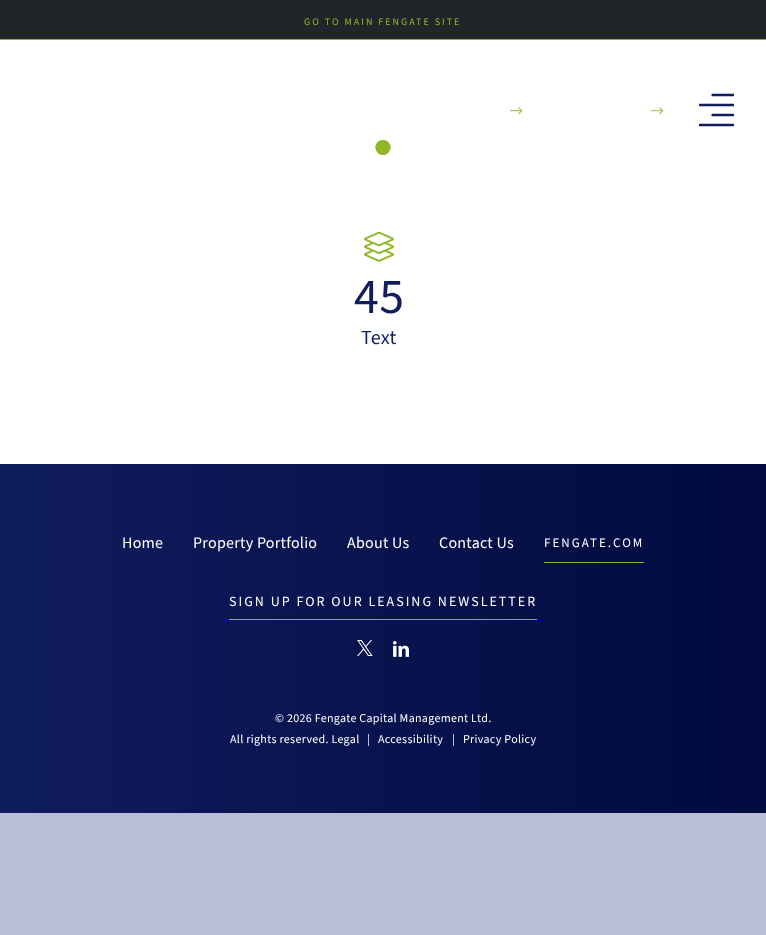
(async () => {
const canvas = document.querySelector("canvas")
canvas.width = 766
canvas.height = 935
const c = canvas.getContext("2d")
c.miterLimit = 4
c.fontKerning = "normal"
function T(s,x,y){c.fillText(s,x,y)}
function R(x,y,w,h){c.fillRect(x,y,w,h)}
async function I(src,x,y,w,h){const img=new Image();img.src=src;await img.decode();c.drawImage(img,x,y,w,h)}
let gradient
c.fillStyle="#b9bed5"
R(0,0,766,935)
c.fillStyle="#fff"
R(0,40,766,424)
c.fillStyle="#212529"
R(0,0,766,39)
c.fillStyle="#8fb829"
R(0,39,766,1)
c.letterSpacing="2px"
c.font="10px Source Sans Pro"
T("GO TO MAIN FENGATE SITE",304,25)
await I("1.png",510,107,13,8)
await I("1.png",651,107,13,8)
await I("2.png",699,93,35,34)
await I("3.png",375,140,16,15)
await I("4.png",375,140,16,15)
await I("5.png",364,231,30,31)
c.letterSpacing="0.3px"
c.font="50px Source Sans Pro"
c.fillStyle="#101d5d"
T("45",354,313)
c.font="20px Source Sans Pro"
T("Text",361,344)
gradient = c.createLinearGradient(0,639,766,639)
gradient.addColorStop(0,"#101d5d")
gradient.addColorStop(1,"#000a3f")
c.fillStyle = gradient
R(0,464,766,349)
c.letterSpacing="0.25px"
c.font="16px Source Sans Pro"
c.fillStyle="#fff"
T("Home",122,548)
T("Property Portfolio",193,548)
T("About Us",347,548)
T("Contact Us",439,548)
c.fillStyle="#8fb829"
R(544,562,100,1)
c.letterSpacing="2px"
c.font="13px Source Sans Pro"
c.fillStyle="#fff"
T("FENGATE.COM",544,547)
c.fillStyle="#8fb829"
R(229,619,308,1)
c.font="14px Source Sans Pro"
c.fillStyle="#fff"
T("SIGN UP FOR OUR LEASING NEWSLETTER",229,606)
await I("6.png",357,640,16,16)
await I("7.png",393,641,16,16)
c.letterSpacing="0.3px"
c.font="12px Source Sans Pro"
T("© 2026 Fengate Capital Management Ltd.",275,722)
T("All rights reserved. Legal",230,743)
T("|",367,743)
T("Accessibility",378,743)
T("|",452,743)
T("Privacy Policy",463,743)
})()
